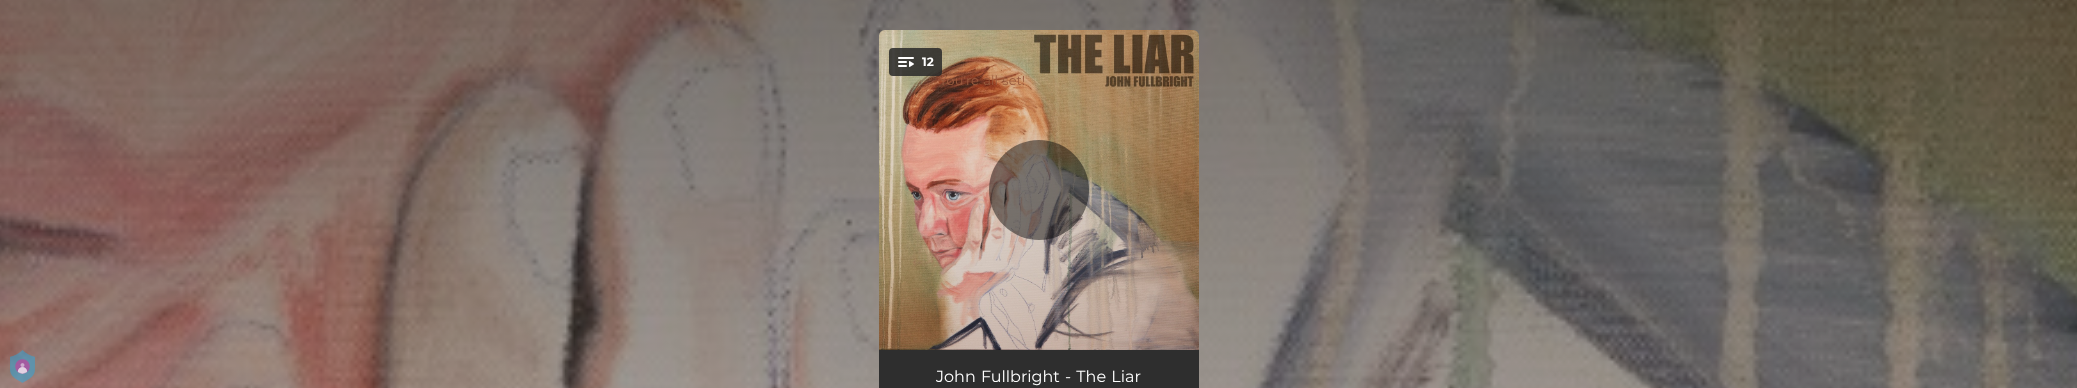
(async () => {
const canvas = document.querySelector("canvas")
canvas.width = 2077
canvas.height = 388
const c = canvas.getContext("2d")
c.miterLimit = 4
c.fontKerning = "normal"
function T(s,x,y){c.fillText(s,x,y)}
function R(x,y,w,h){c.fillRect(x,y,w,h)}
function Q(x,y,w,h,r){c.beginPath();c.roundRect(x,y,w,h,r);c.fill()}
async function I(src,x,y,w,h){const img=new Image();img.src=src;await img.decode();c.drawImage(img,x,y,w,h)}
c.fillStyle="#fff"
R(0,0,2077,388)
await I("2.png",0,0,2077,388)
await I("1.png",10,350,25,33)
await I("3.png",879,30,320,320)
c.wordSpacing="1px"
c.font="13px Montserrat"
c.fillStyle="#9a5c3f"
T("You're all set!",939,85)
c.fillStyle="#282828d9"
Q(889,48,53,28,4)
await I("4.png",898,57,16,10)
c.wordSpacing="0px"
c.font="bold 12px Montserrat"
c.fillStyle="#fff"
T("12",922,66)
c.fillStyle="#00000073"
c.beginPath()
c.arc(1039,190,50,0,7)
c.fill()
c.fillStyle="#2e2e2e"
R(879,350,320,38)
c.wordSpacing="1px"
c.font="16px Montserrat"
c.fillStyle="#fff"
T("John Fullbright - The Liar",936,382)
})()
